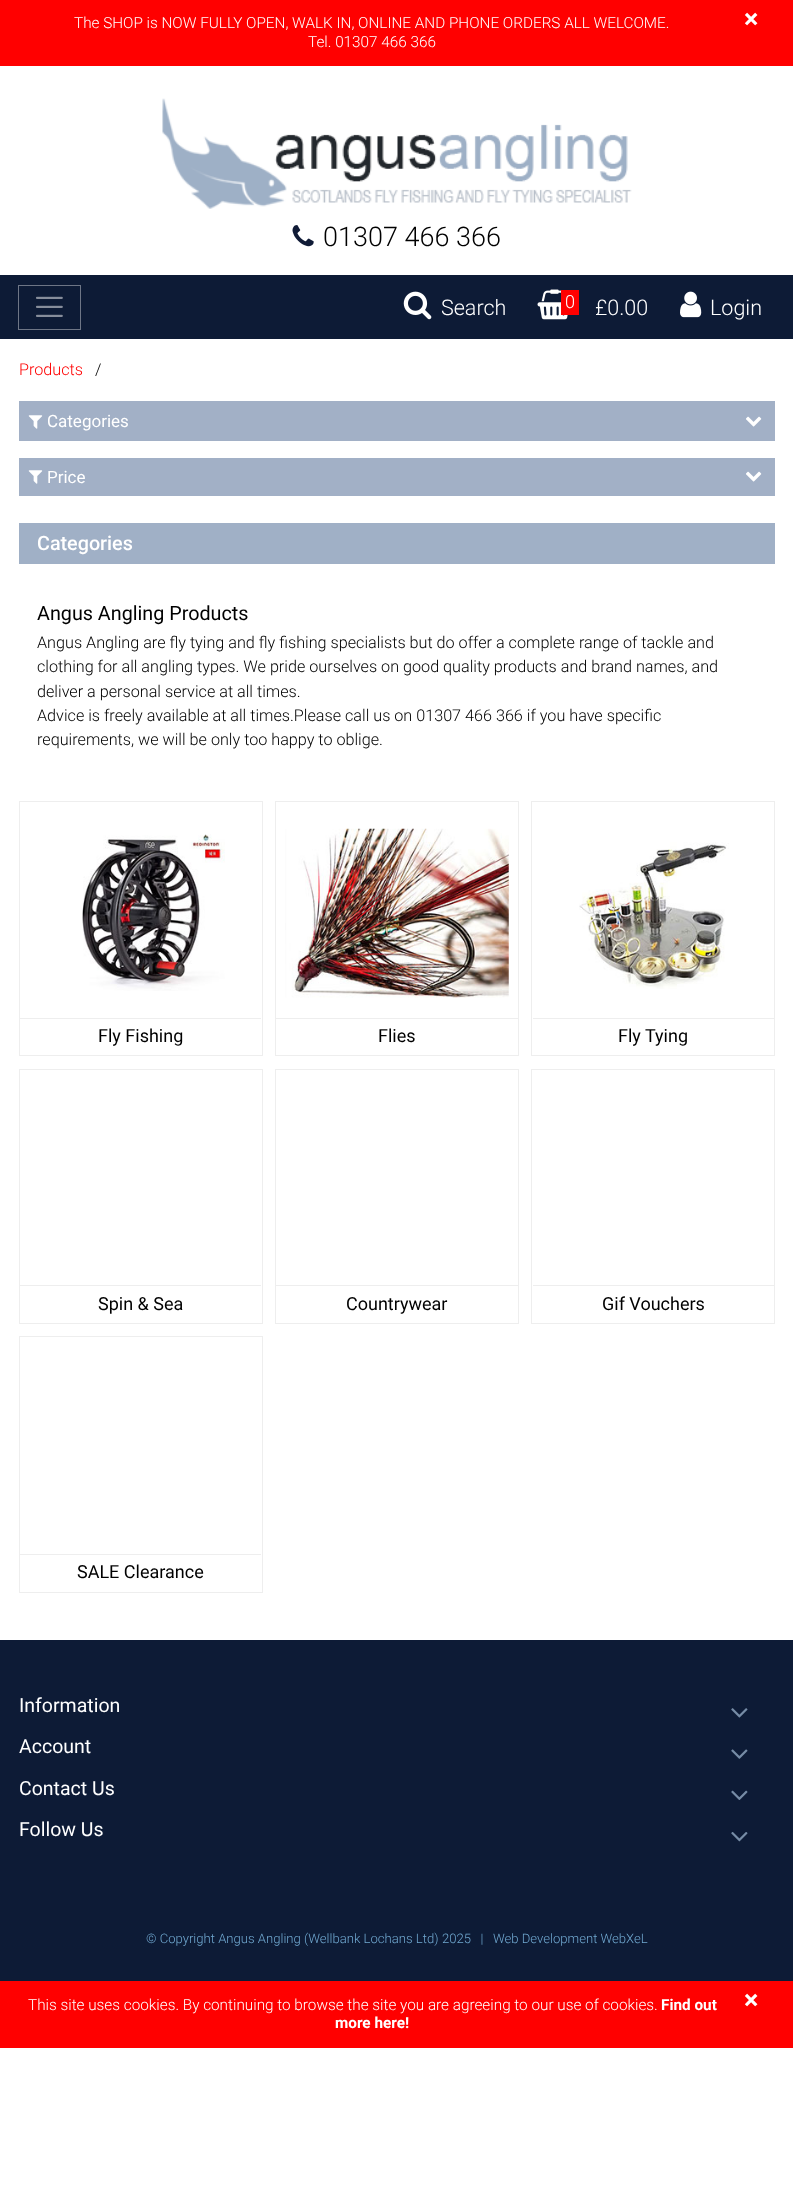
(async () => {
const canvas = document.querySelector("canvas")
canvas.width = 793
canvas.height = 2209
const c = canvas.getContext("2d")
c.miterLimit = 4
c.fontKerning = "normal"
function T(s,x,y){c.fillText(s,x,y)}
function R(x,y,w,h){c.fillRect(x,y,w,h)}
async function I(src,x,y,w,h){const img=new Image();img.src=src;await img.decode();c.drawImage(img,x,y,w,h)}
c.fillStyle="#fff"
R(0,0,793,2209)
c.fillStyle="#f00"
R(0,0,793,66)
c.font="300 15.3px Roboto"
c.fillStyle="#fff"
T("The SHOP is NOW FULLY OPEN, WALK IN, ONLINE AND PHONE ORDERS ALL WELCOME.",74,28)
c.font="bold 27px Roboto"
T("×",744,28)
c.font="300 15.3px Roboto"
T("Tel. 01307 466 366",308,47)
await I("1.png",162,98,470,111)
await I("2.png",292,225,22,22)
c.font="300 27px Roboto"
c.fillStyle="#000"
T("01307 466 366",323,246)
c.fillStyle="#0d1b36"
R(0,275,793,64)
c.strokeStyle="#6e7686"
c.strokeRect(18.5,285.5,62,44)
await I("3.png",36,296,27,21)
await I("4.png",403,291,29,29)
c.font="300 21.5px Roboto"
c.fillStyle="#fff"
T("Search",441,315)
await I("5.png",537,289,31,31)
c.fillStyle="#f00"
R(561,290,18,25)
c.font="300 18px Roboto"
c.fillStyle="#fff"
T("0",565,308)
c.font="300 21.5px Roboto"
T("£0.00",595,315)
await I("6.png",680,291,22,27)
T("Login",710,315)
c.font="300 16.2px Roboto"
c.fillStyle="#f00"
T("Products",19,375)
c.fillStyle="#000"
T("/",95,375)
c.fillStyle="#a2b0c6"
R(19,401,756,40)
await I("7.png",28,415,15,14)
c.font="17px Roboto"
c.fillStyle="#fff"
T("Categories",47,427)
await I("8.png",746,416,16,11)
c.fillStyle="#a2b0c6"
R(19,458,756,38)
await I("7.png",28,470,15,14)
c.fillStyle="#fff"
T("Price",47,483)
await I("8.png",746,471,16,11)
c.fillStyle="#a0b0c6"
R(19,523,756,41)
c.font="500 19.75px Roboto"
c.fillStyle="#fff"
T("Categories",37,550)
c.font="19.75px Roboto"
c.fillStyle="#000"
T("Angus Angling Products",37,620)
c.font="300 16.2px Roboto"
T("Angus Angling are fly tying and fly fishing specialists but do offer a complete range of tackle and",37,648)
T("clothing for all angling types. We pride ourselves on good quality products and brand names, and",37,672)
T("deliver a personal service at all times.",37,697)
T("Advice is freely available at all times.Please call us on 01307 466 366 if you have specific",37,721)
T("requirements, we will be only too happy to oblige.",37,745)
c.strokeStyle="#eee"
c.strokeRect(19.5,801.5,243,254)
await I("9.png",82,834,143,157)
c.fillStyle="#eee"
R(20,1018,241,1)
c.font="18px Roboto"
c.fillStyle="#000"
T("Fly Fishing",98,1042)
c.strokeRect(275.5,801.5,243,254)
await I("10.png",285,828,224,170)
c.fillStyle="#eee"
R(276,1018,242,1)
c.fillStyle="#000"
T("Flies",378,1042)
c.strokeRect(531.5,801.5,243,254)
await I("11.png",579,842,150,147)
c.fillStyle="#eee"
R(533,1018,241,1)
c.fillStyle="#000"
T("Fly Tying",618,1042)
c.strokeRect(19.5,1069.5,243,254)
c.fillStyle="#eee"
R(20,1285,241,1)
c.fillStyle="#000"
T("Spin & Sea",98,1310)
c.strokeRect(275.5,1069.5,243,254)
c.fillStyle="#eee"
R(276,1285,242,1)
c.fillStyle="#000"
T("Countrywear",346,1310)
c.strokeRect(531.5,1069.5,243,254)
c.fillStyle="#eee"
R(533,1285,241,1)
c.fillStyle="#000"
T("Gif Vouchers",602,1310)
c.strokeRect(19.5,1336.5,243,256)
c.fillStyle="#eee"
R(20,1554,241,1)
c.fillStyle="#000"
T("SALE Clearance",77,1578)
c.fillStyle="#0d1b36"
R(0,1640,793,341)
c.font="19.5px Roboto"
c.fillStyle="#fff"
T("Information",19,1712)
await I("12.png",731,1708,17,10)
T("Account",19,1753)
await I("13.png",731,1749,17,10)
T("Contact Us",19,1795)
await I("14.png",731,1790,17,10)
T("Follow Us",19,1836)
await I("15.png",731,1832,17,10)
c.font="300 13.1px Roboto"
c.fillStyle="#70a8d0"
T("© Copyright Angus Angling (Wellbank Lochans Ltd)",146,1943)
T("2025   |",442,1943)
T("Web Development WebXeL",493,1943)
c.fillStyle="#f00"
R(0,1981,793,67)
c.font="300 15.3px Roboto"
c.fillStyle="#fff"
T("This site uses cookies. By continuing to browse the site you are agreeing to our use of cookies.",28,2010)
c.font="bold 15.3px Roboto"
T("Find out",661,2010)
T("more here!",335,2028)
c.font="bold 27px Roboto"
T("×",744,2009)
})()
